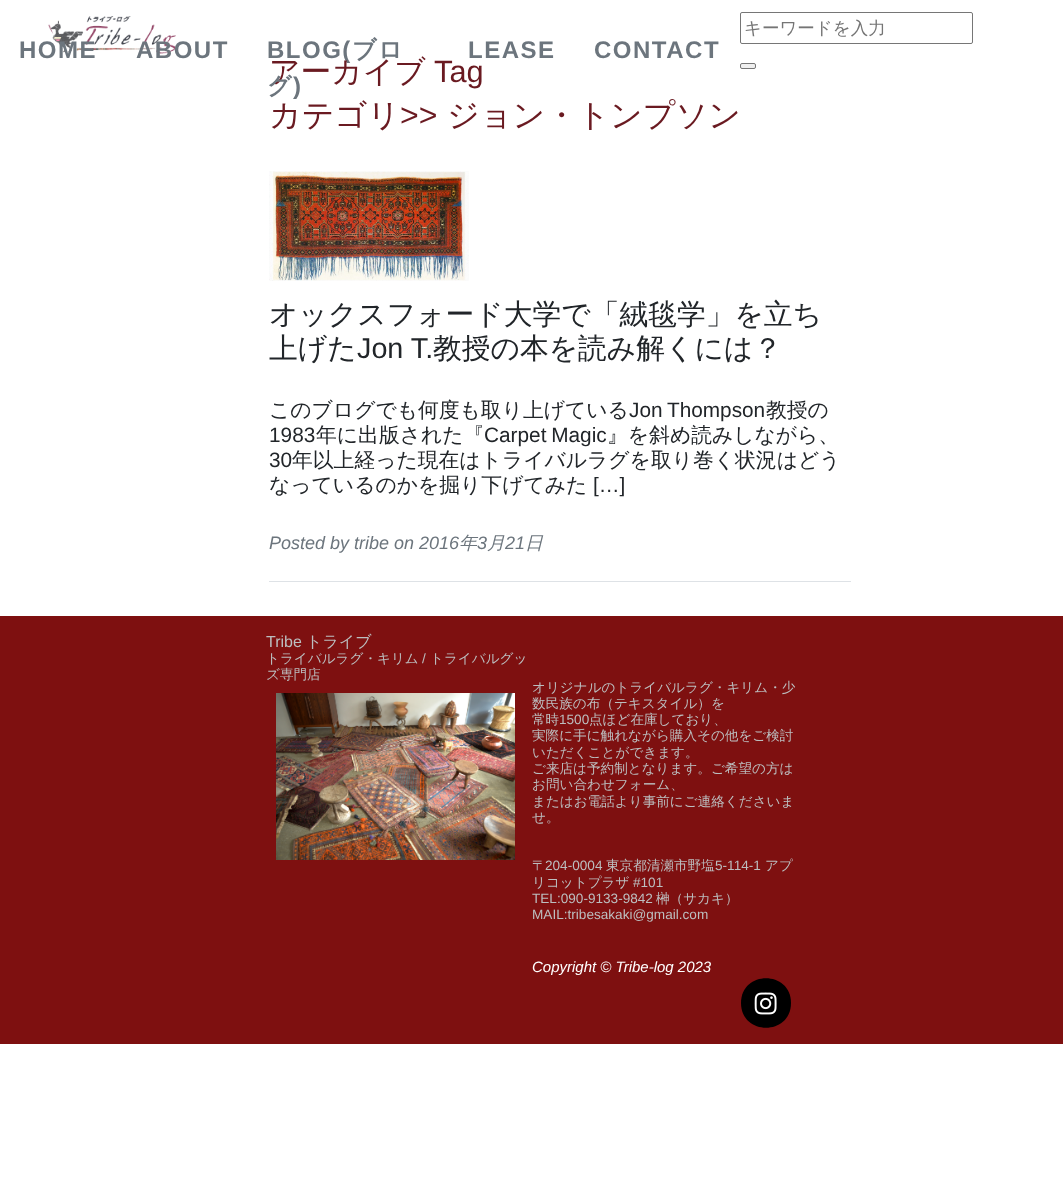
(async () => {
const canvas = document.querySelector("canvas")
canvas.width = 1063
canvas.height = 1179
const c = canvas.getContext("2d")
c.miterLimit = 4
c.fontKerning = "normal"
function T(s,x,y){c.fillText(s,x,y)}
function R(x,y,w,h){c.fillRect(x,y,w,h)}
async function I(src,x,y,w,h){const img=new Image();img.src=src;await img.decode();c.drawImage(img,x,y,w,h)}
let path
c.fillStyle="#fff"
R(0,0,1063,1179)
await I("1.png",48,16,128,38)
c.beginPath()
c.roundRect(740.5,12.5,232,31,1.5)
c.strokeStyle="#767676"
c.stroke()
c.font="500 17.5px WenQuanYi Zen Hei"
c.fillStyle="#757575"
T("キーワードを入力",744,34)
c.fillStyle="#efefef"
c.beginPath()
c.roundRect(740.5,63.5,15,5,1.5)
c.fill()
c.stroke()
c.letterSpacing="1.5px"
c.font="bold 24px Liberation Sans"
c.fillStyle="#6c757d"
T("HOME",19,58)
T("ABOUT",136,58)
T("BLOG(",267,58)
c.font="bold 24px WenQuanYi Zen Hei"
T("ブロ",352,58)
c.letterSpacing="0px"
c.font="500 30.75px WenQuanYi Zen Hei"
c.fillStyle="#6a1a21"
T("アーカイブ",269,82)
c.letterSpacing="1.5px"
c.font="bold 24px WenQuanYi Zen Hei"
c.fillStyle="#6c757d"
T("グ",267,94)
c.font="bold 24px Liberation Sans"
T(")",293,94)
T("LEASE",468,58)
T("CONTACT",594,58)
c.letterSpacing="0px"
c.font="30.75px Liberation Sans"
c.fillStyle="#6a1a21"
T("Tag",434,82)
c.font="500 32px WenQuanYi Zen Hei"
T("カテゴリ",269,126)
c.font="32px Liberation Sans"
T(">>",400,126)
c.font="500 32px WenQuanYi Zen Hei"
T("ジョン・トンプソン",447,126)
await I("2.png",269,171,200,110)
c.font="500 28.75px WenQuanYi Zen Hei"
c.fillStyle="#212529"
T("オックスフォード大学で「絨毯学」を立ち",269,324)
T("上げた",269,358)
c.font="28.75px Liberation Sans"
T("Jon T.",357,358)
c.font="500 28.75px WenQuanYi Zen Hei"
T("教授の本を読み解くには？",433,358)
c.font="500 20.8px WenQuanYi Zen Hei"
T("このブログでも何度も取り上げている",269,417)
c.wordSpacing="-1px"
c.font="20.8px Liberation Sans"
T("Jon Thompson",629,417)
c.wordSpacing="0px"
c.font="500 20.8px WenQuanYi Zen Hei"
T("教授の",766,417)
c.font="20.8px Liberation Sans"
T("1983",269,442)
c.font="500 20.8px WenQuanYi Zen Hei"
T("年に出版された『",316,442)
c.wordSpacing="-1px"
c.font="20.8px Liberation Sans"
T("Carpet Magic",484,442)
c.wordSpacing="0px"
c.font="500 20.8px WenQuanYi Zen Hei"
T("』を斜め読みしながら、",607,442)
c.font="20.8px Liberation Sans"
T("30",269,467)
c.font="500 20.8px WenQuanYi Zen Hei"
T("年以上経った現在はトライバルラグを取り巻く状況はどう",292,467)
T("なっているのかを掘り下げてみた",269,492)
c.font="20.8px Liberation Sans"
T("[…]",593,492)
c.font="italic 18px Liberation Sans"
c.fillStyle="#6c757d"
T("Posted by tribe on 2016",269,549)
c.font="italic 500 18px WenQuanYi Zen Hei"
T("年",459,549)
c.font="italic 18px Liberation Sans"
T("3",477,549)
c.font="italic 500 18px WenQuanYi Zen Hei"
T("月",487,549)
c.font="italic 18px Liberation Sans"
T("21",505,549)
c.font="italic 500 18px WenQuanYi Zen Hei"
T("日",525,549)
c.fillStyle="#dee2e6"
R(269,581,582,1)
c.fillStyle="#7e1010"
R(0,616,1063,428)
c.font="16px Liberation Sans"
c.fillStyle="#bcbebf"
T("Tribe",266,647)
c.font="500 16px WenQuanYi Zen Hei"
T("トライブ",306,647)
c.font="500 13.6px WenQuanYi Zen Hei"
T("トライバルラグ・キリム",266,663)
c.font="13.6px Liberation Sans"
T("/",422,663)
c.font="500 13.6px WenQuanYi Zen Hei"
T("トライバルグッ",430,663)
T("ズ専門店",266,679)
await I("3.png",276,693,239,167)
T("オリジナルのトライバルラグ・キリム・少",532,692)
T("数民族の布（テキスタイル）を",532,708)
T("常時",532,724)
c.font="13.6px Liberation Sans"
T("1500",559,724)
c.font="500 13.6px WenQuanYi Zen Hei"
T("点ほど在庫しており、",589,724)
T("実際に手に触れながら購入その他をご検討",532,740)
T("いただくことができます。",532,757)
T("ご来店は予約制となります。ご希望の方は",532,773)
T("お問い合わせフォーム、",532,789)
T("またはお電話より事前にご連絡くださいま",532,806)
T("せ。",532,822)
T("〒",532,870)
c.font="13.6px Liberation Sans"
T("204-0004",545,870)
c.font="500 13.6px WenQuanYi Zen Hei"
T("東京都清瀬市野塩",606,870)
c.font="13.6px Liberation Sans"
T("5-114-1",715,870)
c.font="500 13.6px WenQuanYi Zen Hei"
T("アプ",765,870)
T("リコットプラザ",532,887)
c.font="13.6px Liberation Sans"
T("#101",633,887)
T("TEL:090-9133-9842",532,903)
c.font="500 13.6px WenQuanYi Zen Hei"
T("榊（サカキ）",656,903)
c.font="13.6px Liberation Sans"
T("MAIL:tribesakaki@gmail.com",532,919)
c.font="italic 15px Liberation Sans"
c.fillStyle="#fff"
T("Copyright © Tribe-log 2023",532,972)
c.fillStyle="#000"
path = new Path2D("M791 1003c0 33-50 33-50 0c0-33 50-33 50 0z")
c.fill(path)
await I("4.png",754,992,23,23)
})()
